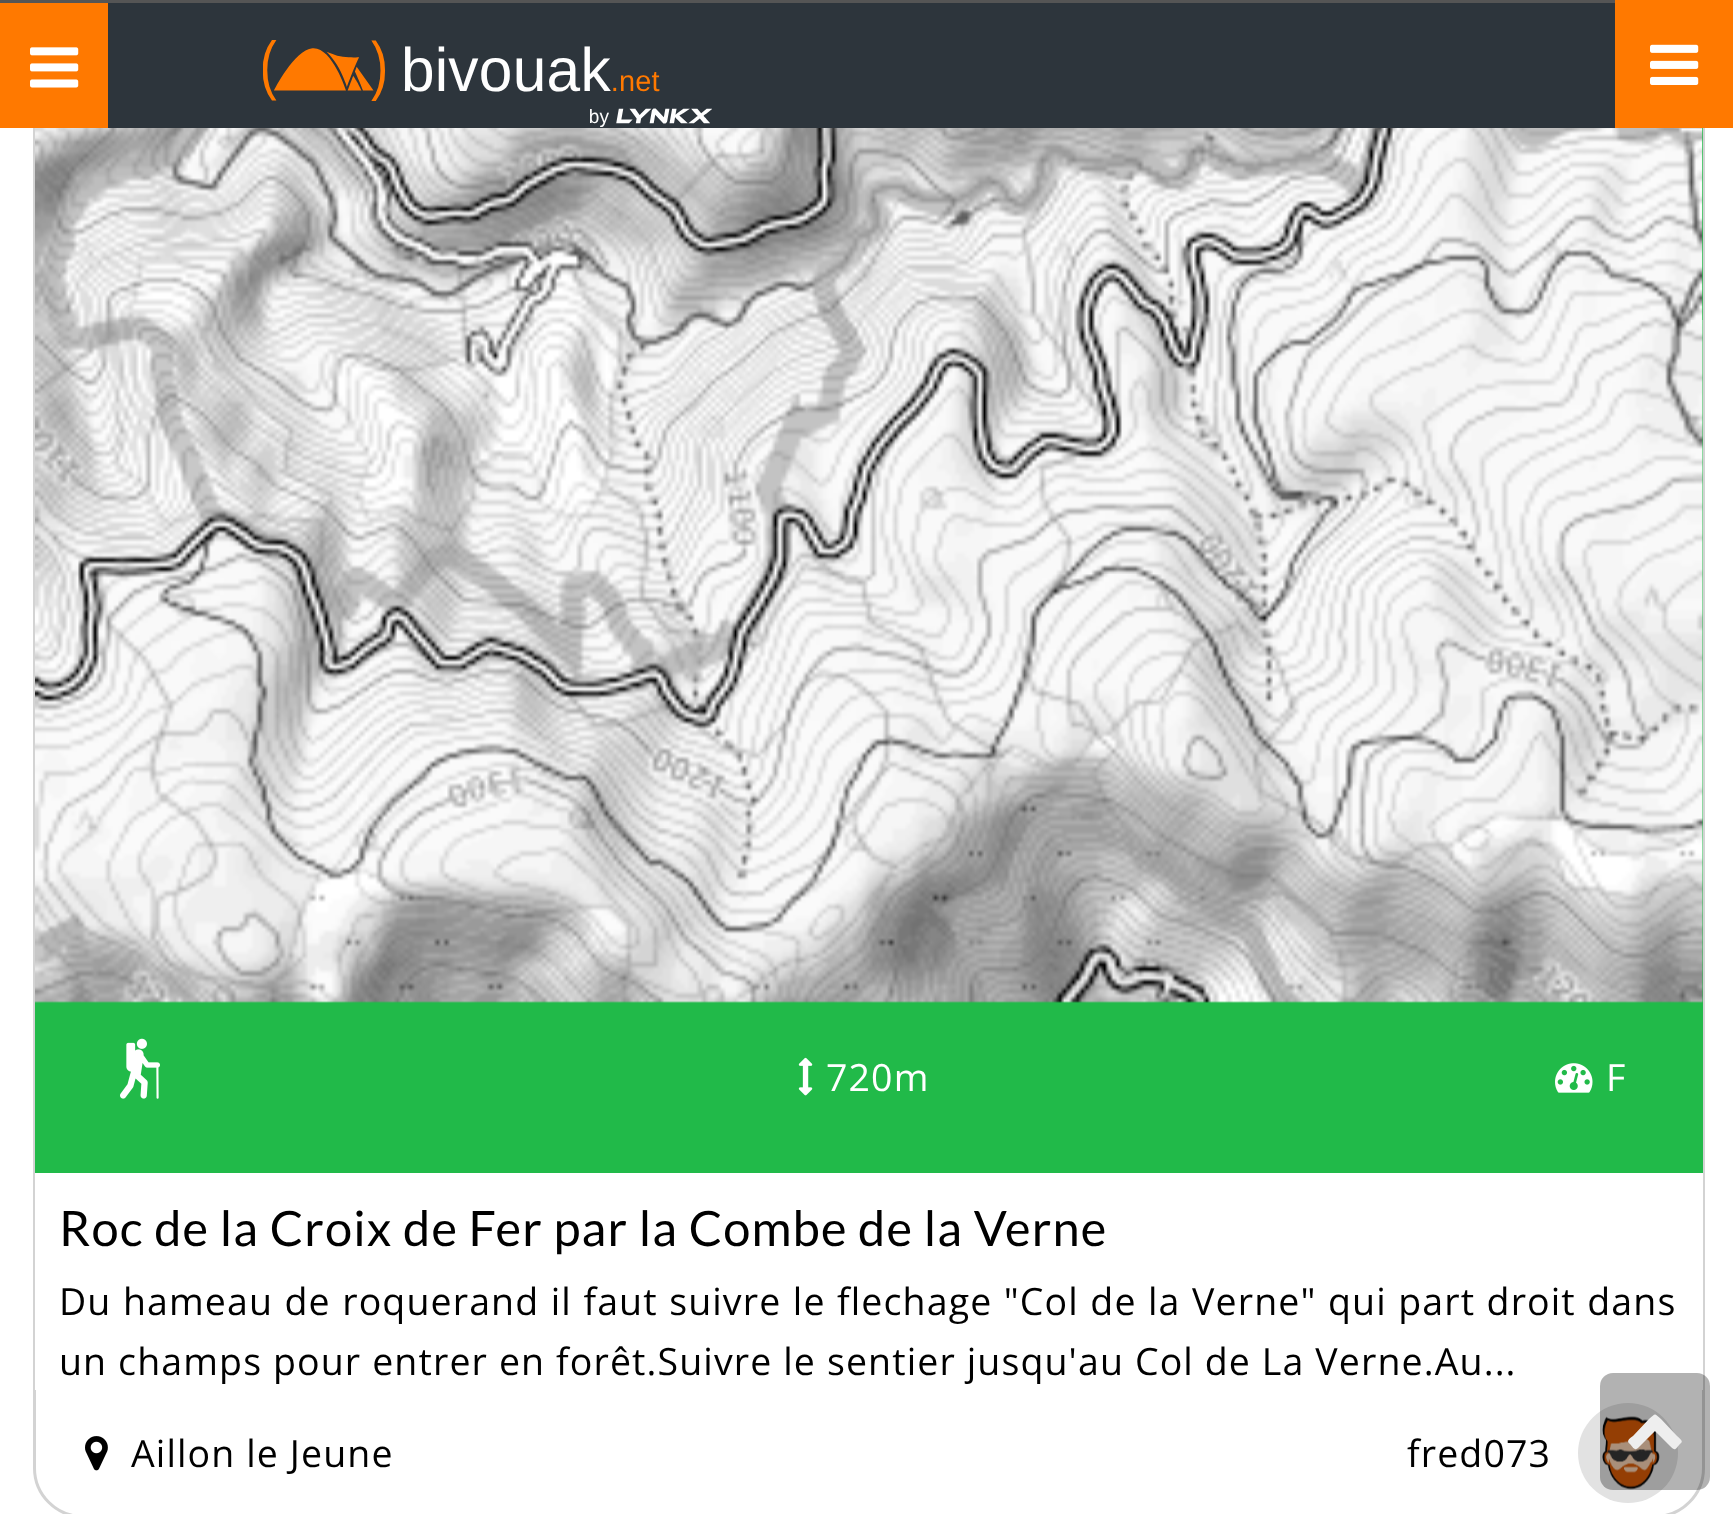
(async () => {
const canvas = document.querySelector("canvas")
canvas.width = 1733
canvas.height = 1514
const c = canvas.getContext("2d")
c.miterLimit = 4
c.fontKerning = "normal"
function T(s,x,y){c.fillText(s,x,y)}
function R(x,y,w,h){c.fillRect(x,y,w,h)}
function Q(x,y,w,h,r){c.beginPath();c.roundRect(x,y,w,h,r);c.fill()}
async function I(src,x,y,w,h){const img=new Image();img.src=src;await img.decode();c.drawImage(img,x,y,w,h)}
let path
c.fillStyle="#fff"
R(0,0,1733,1514)
c.beginPath()
c.roundRect(34.5,64.5,1669,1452,48.5)
c.strokeStyle="#d3d3d3"
c.lineWidth=3
c.stroke()
c.fillStyle="#2d353c"
R(108,3,1507,125)
c.fillStyle="#555"
R(0,0,1615,3)
c.fillStyle="#ff7900"
R(0,3,108,125)
await I("1.png",30,47,49,41)
await I("2.png",263,40,449,87)
R(1615,0,118,128)
await I("3.png",1650,44,49,41)
c.fillStyle="#21ba49"
R(35,128,1668,1045)
await I("4.png",35,128,1668,875)
await I("5.png",120,1038,40,61)
await I("6.png",798,1057,15,39)
c.letterSpacing="1.12px"
c.font="37.5px Open Sans"
c.fillStyle="#fff"
T("720m",826,1091)
await I("7.png",1555,1063,38,30)
T("F",1606,1091)
R(35,1173,1668,217)
c.font="48.75px Lato"
c.fillStyle="#000"
T("Roc de la Croix de Fer par la Combe de la Verne",59,1246)
c.wordSpacing="0.6px"
c.font="37.5px Open Sans"
T("Du hameau de roquerand il faut suivre le flechage \"Col de la Verne\" qui part droit dans",59,1315)
c.wordSpacing="0px"
T("un champs pour entrer en forêt.Suivre le sentier jusqu'au Col de La Verne.Au...",59,1375)
await I("8.png",85,1436,23,35)
T("Aillon le Jeune",131,1467)
T("fred073",1407,1467)
c.fillStyle="#e2e2e2"
c.beginPath()
c.arc(1628,1453,50,0,7)
c.fill()
await I("9.png",1602,1416,58,74)
c.fillStyle="#0000004d"
Q(1600,1373,110,117,13)
c.fillStyle="#eee"
path = new Path2D("M1681 1443c-6 6-5 9-11 3l-15-15l-15 15c-5 5-5 4-10-2c-4-3-1-5 3-8l16-17c7-6 5-6 12 0l16 17c1 1 7 5 4 7z")
c.fill(path)
})()
